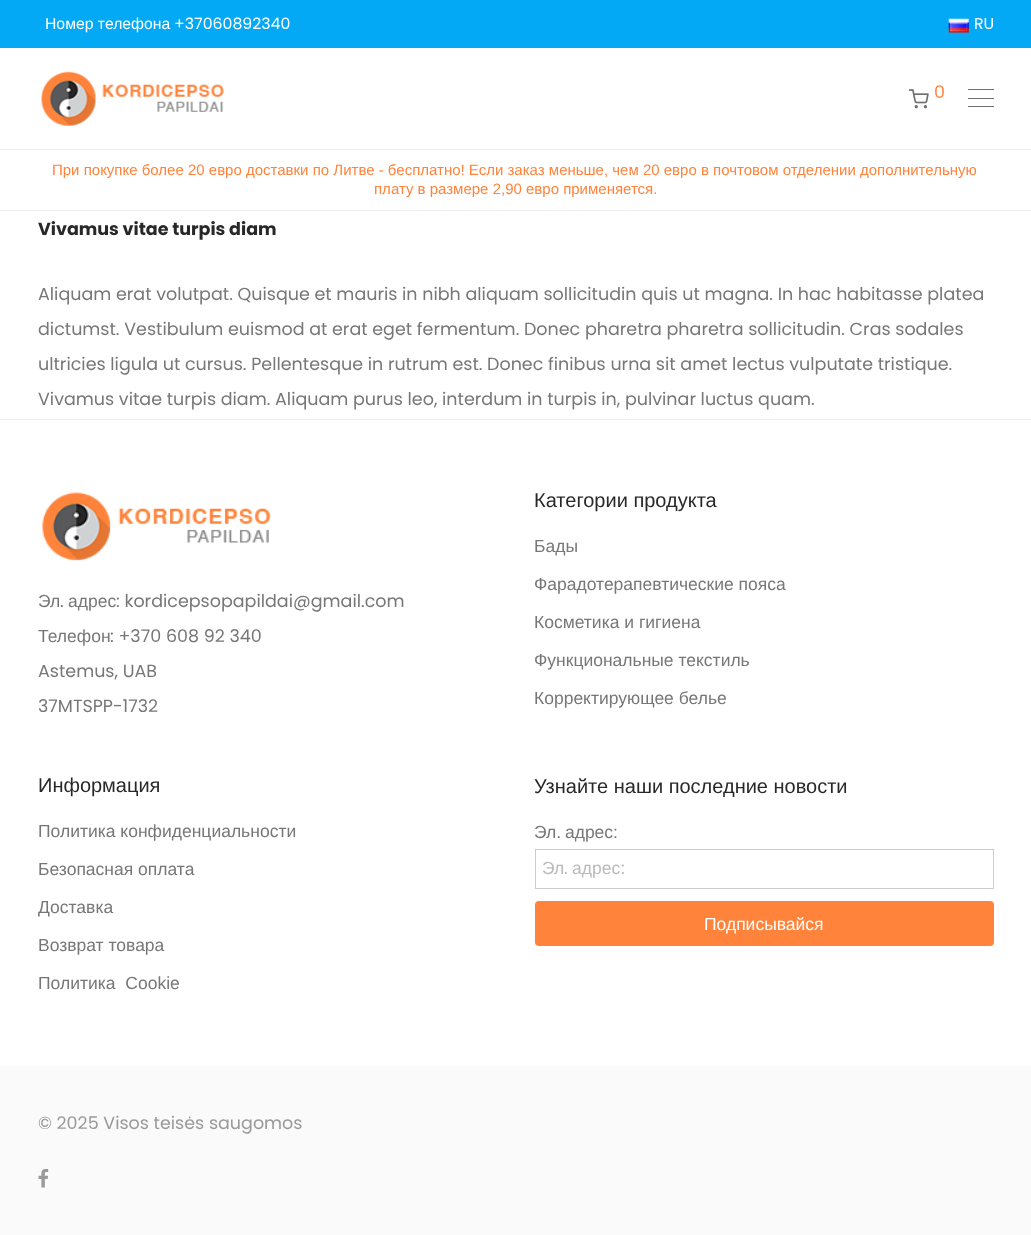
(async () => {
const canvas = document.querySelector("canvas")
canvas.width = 1031
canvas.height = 1235
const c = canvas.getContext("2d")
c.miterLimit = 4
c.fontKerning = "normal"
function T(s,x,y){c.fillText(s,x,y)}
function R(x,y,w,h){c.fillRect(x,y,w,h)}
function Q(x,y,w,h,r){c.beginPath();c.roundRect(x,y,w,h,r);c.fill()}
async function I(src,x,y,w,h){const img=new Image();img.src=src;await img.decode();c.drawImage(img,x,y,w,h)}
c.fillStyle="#fff"
R(0,0,1031,1235)
c.fillStyle="#03a9f4"
R(0,0,1031,48)
c.font="15.75px Liberation Sans"
c.fillStyle="#fff"
T("Номер телефона",45,29)
c.font="15.75px Poppins"
T("+37060892340",174,29)
await I("1.png",948,18,21,15)
T("RU",974,29)
c.fillStyle="#eee"
R(0,149,1031,1)
await I("2.png",41,71,183,55)
await I("3.png",908,89,21,20)
c.font="17.5px Poppins"
c.fillStyle="#ff833a"
T("0",934,98)
c.fillStyle="#707070"
R(968,89,26,1)
R(968,98,26,1)
R(968,106,26,1)
c.fillStyle="#eee"
R(0,210,1031,1)
c.font="15px Liberation Sans"
c.fillStyle="#ff833a"
T("При покупке более 20 евро доставки по Литве - бесплатно! Если заказ меньше, чем 20 евро в почтовом отделении дополнительную",52,175)
T("плату в размере 2,90 евро применяется.",374,194)
c.font="bold 17.5px Poppins"
c.fillStyle="#282828"
T("Vivamus vitae turpis diam",38,235)
c.font="17.5px Poppins"
c.fillStyle="#777"
T("Aliquam erat volutpat. Quisque et mauris in nibh aliquam sollicitudin quis ut magna. In hac habitasse platea",38,300)
T("dictumst. Vestibulum euismod at erat eget fermentum. Donec pharetra pharetra sollicitudin. Cras sodales",38,335)
T("ultricies ligula ut cursus. Pellentesque in rutrum est. Donec finibus urna sit amet lectus vulputate tristique.",38,370)
T("Vivamus vitae turpis diam. Aliquam purus leo, interdum in turpis in, pulvinar luctus quam.",38,405)
c.fillStyle="#eee"
R(0,419,1031,1)
await I("4.png",42,492,229,69)
c.font="17.5px Liberation Sans"
c.fillStyle="#777"
T("Эл",38,607)
c.font="17.5px Poppins"
T(".",60,607)
c.font="17.5px Liberation Sans"
T("адрес",68,607)
c.font="17.5px Poppins"
T(": kordicepsopapildai@gmail.com",116,607)
c.font="17.5px Liberation Sans"
T("Телефон",38,642)
c.font="17.5px Poppins"
T(": +370 608 92 340",110,642)
T("Astemus, UAB",38,677)
T("37MTSPP-1732",38,712)
c.font="20px Liberation Sans"
c.fillStyle="#282828"
T("Категории продукта",534,507)
c.font="17.5px Liberation Sans"
c.fillStyle="#777"
T("Бады",534,552)
T("Фарадотерапевтические пояса",534,590)
T("Косметика и гигиена",534,628)
T("Функциональные текстиль",534,666)
T("Корректирующее белье",534,704)
c.font="20px Liberation Sans"
c.fillStyle="#282828"
T("Информация",38,792)
c.font="17.5px Liberation Sans"
c.fillStyle="#777"
T("Политика конфиденциальности",38,837)
T("Безопасная оплата",38,875)
T("Доставка",38,913)
T("Возврат товара",38,951)
c.wordSpacing="5px"
T("Политика Cookie",38,989)
c.wordSpacing="0px"
c.font="20px Liberation Sans"
c.fillStyle="#282828"
T("Узнайте наши последние новости",534,793)
c.wordSpacing="-1px"
c.font="17.5px Liberation Sans"
c.fillStyle="#777"
T("Эл. адрес:",534,838)
c.strokeStyle="#ccc"
c.strokeRect(535.5,849.5,458,39)
c.wordSpacing="0px"
c.fillStyle="#bababa"
T("Эл",542,874)
c.font="17.5px Poppins"
T(".",564,874)
c.font="17.5px Liberation Sans"
T("адрес",572,874)
c.font="17.5px Poppins"
T(":",621,874)
c.fillStyle="#ff833a"
Q(535,901,459,45,4)
c.font="17.5px Liberation Sans"
c.fillStyle="#fff"
T("Подписывайся",704,930)
c.fillStyle="#fafafa"
R(0,1066,1031,169)
c.font="17.5px Poppins"
c.fillStyle="#999"
T("© 2025 Visos teisės saugomos",38,1129)
await I("5.png",38,1168,11,20)
})()
